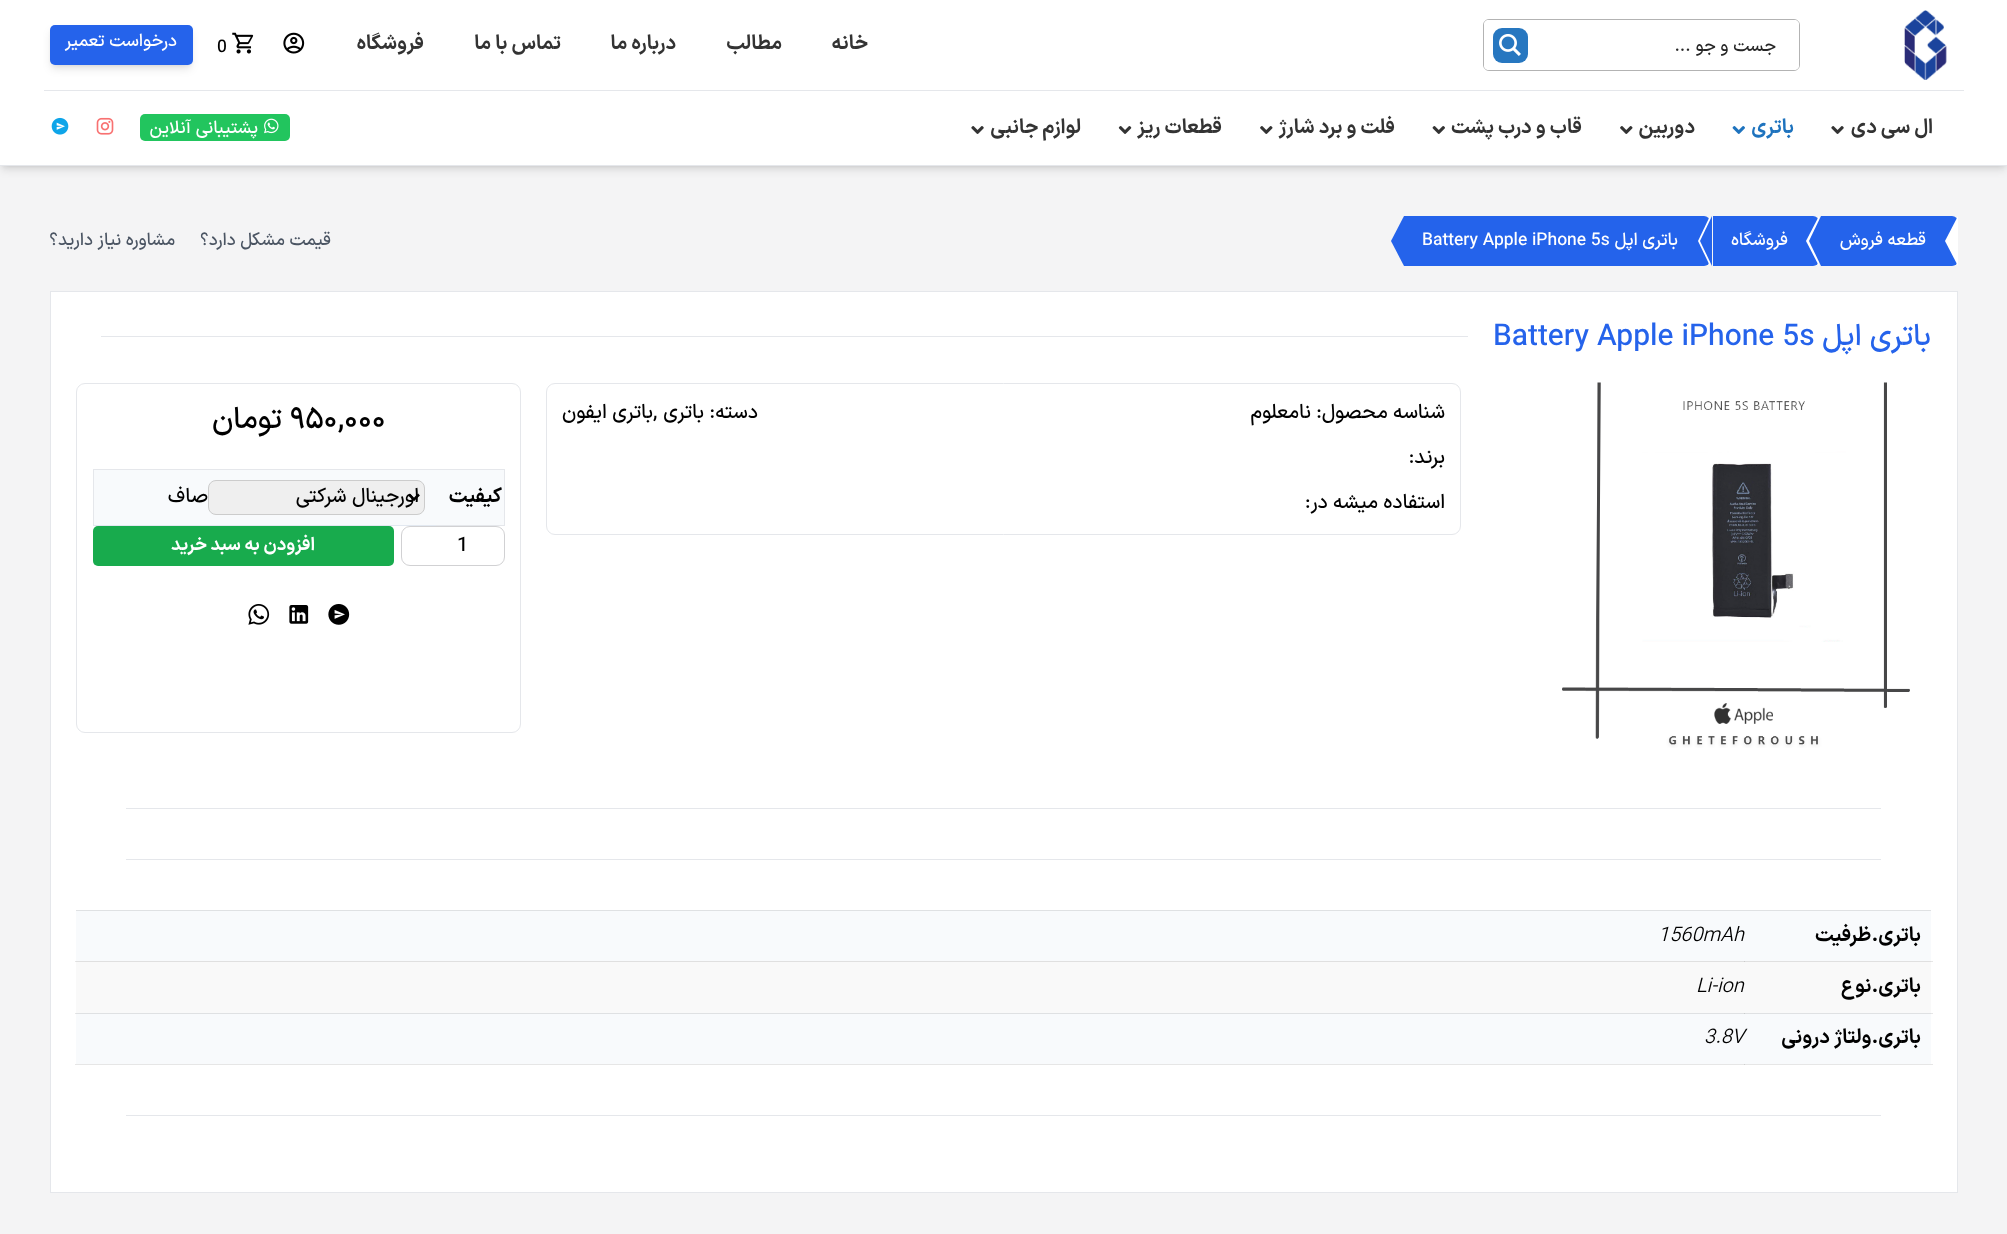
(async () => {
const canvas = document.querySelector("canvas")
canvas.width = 2007
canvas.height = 1234
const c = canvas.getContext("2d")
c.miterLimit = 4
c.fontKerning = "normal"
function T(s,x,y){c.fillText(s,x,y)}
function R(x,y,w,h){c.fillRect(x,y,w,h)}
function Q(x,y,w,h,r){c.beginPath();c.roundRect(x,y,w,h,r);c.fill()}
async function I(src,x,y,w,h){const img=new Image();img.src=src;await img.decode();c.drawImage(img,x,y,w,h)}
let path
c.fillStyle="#f4f4f5"
R(0,0,2007,1234)
c.fillStyle="#0000001a"
c.filter="blur(2.5px)"
c.beginPath()
c.rect(3,5,2002,161)
c.fill()
c.filter="none"
c.filter="blur(4px)"
c.beginPath()
c.rect(1,6,2005,164)
c.fill()
c.filter="none"
c.fillStyle="#fff"
R(0,0,2007,165)
c.fillStyle="#e5e7eb"
R(0,165,2007,1)
await I("1.png",1904,10,43,70)
c.beginPath()
c.roundRect(1483.5,19.5,316,51,5.5)
c.strokeStyle="#b3b3b3"
c.stroke()
c.fillStyle="#fff"
Q(1484,20,315,50,5)
c.fillStyle="#fffffffc"
Q(1484,20,315,50,5)
c.direction="rtl"
c.font="500 17.5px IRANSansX"
c.fillStyle="#262626"
T("جست و جو ...",1776,51)
c.fillStyle="#2777c0"
Q(1493,28,35,35,9)
await I("2.png",1499,34,22,22)
c.font="bold 20px IRANSansX"
c.fillStyle="#333"
T("خانه",868,49)
T("مطالب",782,49)
T("درباره ما",676,49)
T("تماس با ما",561,49)
T("فروشگاه",424,49)
await I("3.png",283,32,22,22)
await I("4.png",232,32,22,22)
c.direction="ltr"
c.font="500 17.5px IRANSansX"
c.fillStyle="#000"
T("0",217,52)
c.fillStyle="#0000001a"
c.filter="blur(2.5px)"
c.beginPath()
c.roundRect(53,30,137,35,2.5)
c.fill()
c.filter="none"
c.filter="blur(4px)"
c.beginPath()
c.roundRect(51,31,140,38,4)
c.fill()
c.filter="none"
c.fillStyle="#2563eb"
Q(50,25,143,40,5)
c.direction="rtl"
c.fillStyle="#fff"
T("درخواست تعمیر",177,46)
c.fillStyle="#e5e7eb"
R(44,90,1920,1)
c.font="bold 20px IRANSansX"
c.fillStyle="#333"
T("ال سی دی",1933,133)
await I("5.png",1831,126,13,8)
c.fillStyle="#1e73be"
T("باتری",1794,133)
await I("6.png",1732,126,13,8)
c.fillStyle="#333"
T("دوربین",1695,133)
await I("7.png",1620,126,13,8)
T("قاب و درب پشت",1582,133)
await I("8.png",1432,126,13,8)
T("فلت و برد شارژ",1395,133)
await I("7.png",1260,126,13,8)
T("قطعات ریز",1222,133)
await I("9.png",1118,126,14,8)
T("لوازم جانبی",1081,133)
await I("5.png",971,126,13,8)
c.fillStyle="#22c55e"
Q(140,114,150,27,5)
await I("10.png",264,118,15,16)
c.font="500 17.5px IRANSansX"
c.fillStyle="#fff"
T("پشتیبانی آنلاین",258,133)
await I("11.png",96,117,18,18)
await I("12.png",51,117,18,18)
c.fillStyle="#2463eb"
c.beginPath()
c.roundRect(1821,216,137,50,[0,6,6,0])
c.fill()
c.fillStyle="#fff"
path = new Path2D("M1958 216v50l-13-25z")
c.fill(path)
T("قطعه فروش",1926,245)
c.fillStyle="#2463eb"
c.beginPath()
c.roundRect(1713,216,106,50,[0,6,6,0])
c.fill()
c.fillStyle="#fff"
path = new Path2D("M1819 216v50l-13-25z")
c.fill(path)
c.fillStyle="#2463eb"
path = new Path2D("M1821 216v50l-12-25z")
c.fill(path)
c.fillStyle="#fff"
T("فروشگاه",1788,245)
c.fillStyle="#2463eb"
c.beginPath()
c.roundRect(1404,216,306,50,[0,6,6,0])
c.fill()
c.fillStyle="#fff"
path = new Path2D("M1710 216v50l-12-25z")
c.fill(path)
c.fillStyle="#2463eb"
path = new Path2D("M1712 216v50l-12-25z")
c.fill(path)
c.fillStyle="#fff"
T("باتری اپل",1678,245)
c.direction="ltr"
T("Battery Apple iPhone 5s",1422,245)
c.fillStyle="#2463eb"
path = new Path2D("M1404 216v50l-13-25z")
c.fill(path)
c.direction="rtl"
c.fillStyle="#4b5563"
T("قیمت مشکل دارد؟",331,245)
T("مشاوره نیاز دارید؟",175,245)
c.fillStyle="#fff"
R(51,292,1906,900)
c.fillStyle="#e6e6e6"
R(1931,961,2,1)
R(75,961,1,1)
R(1931,1013,2,1)
R(75,1013,1,1)
R(1744,1064,189,1)
c.strokeStyle="#e5e7eb"
c.strokeRect(50.5,291.5,1907,901)
c.font="500 30px IRANSansX"
c.fillStyle="#2563eb"
T("باتری اپل",1931,345)
c.direction="ltr"
T("Battery Apple iPhone 5s",1493,345)
c.fillStyle="#e5e7eb"
R(101,336,1367,1)
await I("13.png",1562,382,348,366)
c.beginPath()
c.roundRect(546.5,383.5,914,151,8.5)
c.stroke()
c.direction="rtl"
c.font="500 20px IRANSansX"
c.fillStyle="#000"
T("شناسه محصول:",1445,418)
T("نامعلوم",1311,418)
T("دسته:",758,418)
T("باتری",704,418)
c.direction="ltr"
T(",",653,418)
c.direction="rtl"
T("باتری ایفون",653,418)
T("برند:",1445,463)
T("استفاده میشه در‌:",1445,508)
c.beginPath()
c.roundRect(76.5,383.5,444,349,8.5)
c.stroke()
c.direction="ltr"
c.font="500 30px IRANSansX"
T("۹۵۰,۰۰۰",290,428)
c.direction="rtl"
T("تومان",282,428)
c.fillStyle="#e5e7eb"
R(93,469,412,1)
R(504,469,1,57)
R(436,525,69,1)
R(93,469,1,57)
c.fillStyle="#f8fafc"
R(94,470,410,55)
c.font="bold 20px IRANSansX"
c.fillStyle="#000"
T("کیفیت",502,502)
c.fillStyle="#e2e8f0"
R(93,525,343,1)
c.fillStyle="#efefef"
c.beginPath()
c.roundRect(208.5,480.5,216,34,7.5)
c.fill()
c.strokeStyle="#ccc"
c.stroke()
path = new Path2D("M409 494.5l5 5l5-5")
c.strokeStyle="#000"
c.lineWidth=2.5
c.stroke(path)
c.font="500 20px IRANSansX"
c.fillStyle="#000"
T("اورجینال شرکتی",419,502)
T("صاف",208,502)
c.beginPath()
c.roundRect(401.5,526.5,103,39,8.5)
c.strokeStyle="#d1d1d3"
c.lineWidth=1
c.stroke()
c.direction="ltr"
T("1",457,551)
c.fillStyle="#18ab4d"
Q(93,526,301,40,5)
c.direction="rtl"
c.font="bold 18px IRANSansX"
c.fillStyle="#fff"
T("افزودن به سبد خرید",315,550)
await I("14.png",328,604,22,21)
await I("15.png",289,605,20,19)
await I("16.png",248,604,22,21)
c.fillStyle="#e5e7eb"
R(126,808,1755,1)
R(126,859,1755,1)
c.fillStyle="#dfe1e3"
R(76,910,1855,1)
c.fillStyle="#f8fafc"
R(76,911,1855,50)
c.font="bold 20px IRANSansX"
c.fillStyle="#000"
T("باتری.ظرفیت",1921,941)
c.direction="ltr"
c.font="italic 300 20px IRANSansX"
T("1560mAh",1658,941)
c.fillStyle="#f9f9f9"
R(76,962,1855,51)
c.fillStyle="#e0e0e0"
R(76,961,1855,1)
c.fillStyle="#cacaca"
R(1744,961,1,1)
c.direction="rtl"
c.font="bold 20px IRANSansX"
c.fillStyle="#000"
T("باتری.نوع",1921,992)
c.direction="ltr"
c.font="italic 300 20px IRANSansX"
T("Li-ion",1696,992)
c.fillStyle="#f8fafc"
R(76,1014,1855,50)
c.fillStyle="#dfe1e3"
R(76,1013,1855,1)
c.fillStyle="#c9cbcc"
R(1744,1013,1,1)
c.direction="rtl"
c.font="bold 20px IRANSansX"
c.fillStyle="#000"
T("باتری.ولتاژ درونی",1921,1043)
c.fillStyle="#e6e6e6"
R(75,1064,1670,1)
c.fillStyle="#cfcfcf"
R(1744,1064,1,1)
c.direction="ltr"
c.font="italic 300 20px IRANSansX"
c.fillStyle="#000"
T("3.8V",1704,1043)
c.fillStyle="#e5e7eb"
R(126,1115,1755,1)
})()
